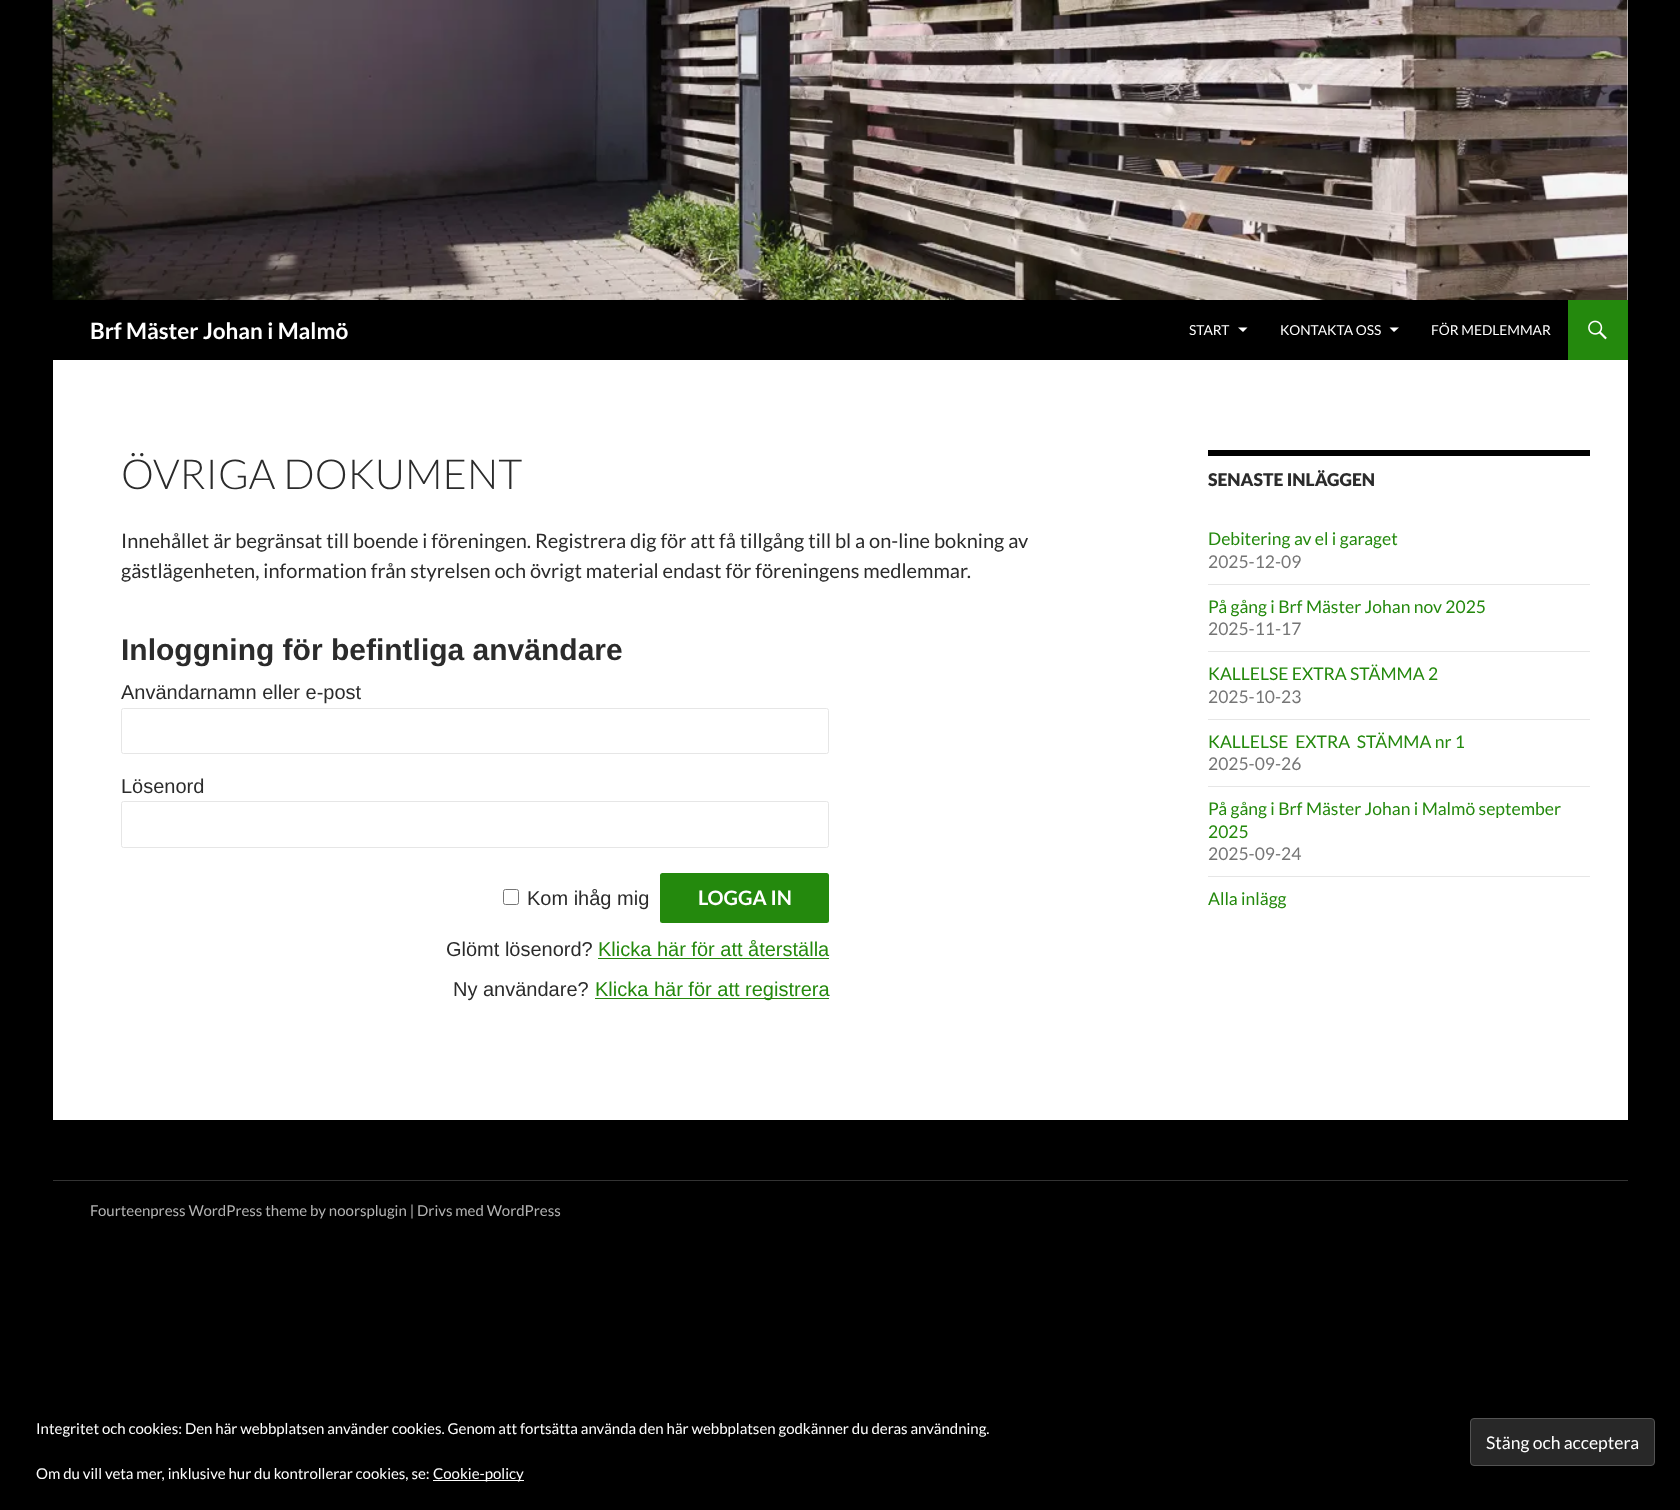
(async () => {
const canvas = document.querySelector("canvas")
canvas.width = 1680
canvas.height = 1510
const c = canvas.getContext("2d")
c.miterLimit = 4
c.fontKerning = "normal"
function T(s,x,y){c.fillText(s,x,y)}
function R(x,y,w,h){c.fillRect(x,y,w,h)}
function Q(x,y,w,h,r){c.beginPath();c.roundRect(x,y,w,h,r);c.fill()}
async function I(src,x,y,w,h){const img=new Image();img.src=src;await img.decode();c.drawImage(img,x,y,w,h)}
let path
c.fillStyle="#000"
R(0,0,1680,1510)
c.fillStyle="#fff"
R(53,0,1575,1120)
await I("1.png",52,0,1576,300)
c.fillStyle="#000"
R(53,300,1515,60)
c.font="bold 22.5px Lato"
c.fillStyle="#fff"
T("Brf Mäster Johan i Malmö",90,339)
c.font="13.75px Lato"
T("START",1189,335)
path = new Path2D("M1238 327.5h9.5l-4.5 4.5z")
c.fill(path)
T("KONTAKTA OSS",1280,335)
path = new Path2D("M1389.5 327.5h9.5l-5 4.5z")
c.fill(path)
T("FÖR MEDLEMMAR",1431,335)
c.fillStyle="#24890d"
R(1568,300,60,60)
await I("2.png",1588,320,19,20)
c.font="300 41.25px Lato"
c.fillStyle="#2b2b2b"
T("ÖVRIGA DOKUMENT",121,489)
c.font="20px Lato"
T("Innehållet är begränsat till boende i föreningen. Registrera dig för att få tillgång till bl a on-line bokning av",121,548)
T("gästlägenheten, information från styrelsen och övrigt material endast för föreningens medlemmar.",121,578)
c.font="bold 30px Liberation Sans"
T("Inloggning för befintliga användare",121,660)
c.font="20px Liberation Sans"
T("Användarnamn eller e-post",121,699)
c.beginPath()
c.roundRect(121.5,708.5,707,45,2)
c.strokeStyle="#e6e6e6"
c.stroke()
T("Lösenord",121,793)
c.beginPath()
c.roundRect(121.5,801.5,707,46,2)
c.stroke()
c.beginPath()
c.roundRect(503.5,889.5,15,15,2)
c.strokeStyle="#767676"
c.stroke()
T("Kom ihåg mig",527,905)
c.fillStyle="#24890d"
Q(660,873,169,50,2.5)
c.font="bold 20px Lato"
c.fillStyle="#fff"
T("LOGGA IN",698,905)
c.font="20px Liberation Sans"
c.fillStyle="#2b2b2b"
T("Glömt lösenord?",446,956)
c.fillStyle="#24890d"
T("Klicka här för att återställa",598,956)
R(598,958,231,1)
c.fillStyle="#2b2b2b"
T("Ny användare?",453,996)
c.fillStyle="#24890d"
R(595,998,234,1)
T("Klicka här för att registrera",595,996)
c.fillStyle="#000"
R(1208,450,382,6)
c.font="900 17.5px Lato"
c.fillStyle="#2b2b2b"
T("SENASTE INLÄGGEN",1208,486)
c.font="17.5px Lato"
c.fillStyle="#24890d"
T("Debitering av el i garaget",1208,545)
c.fillStyle="#767676"
T("2025-12-09",1208,568)
c.fillStyle="#e6e6e6"
R(1208,584,382,1)
c.fillStyle="#24890d"
T("På gång i Brf Mäster Johan nov 2025",1208,613)
c.fillStyle="#767676"
T("2025-11-17",1208,635)
c.fillStyle="#e6e6e6"
R(1208,651,382,1)
c.fillStyle="#24890d"
T("KALLELSE EXTRA STÄMMA 2",1208,680)
c.fillStyle="#767676"
T("2025-10-23",1208,703)
c.fillStyle="#e6e6e6"
R(1208,719,382,1)
c.fillStyle="#24890d"
T("KALLELSE  EXTRA  STÄMMA nr 1",1208,748)
c.fillStyle="#767676"
T("2025-09-26",1208,770)
c.fillStyle="#e6e6e6"
R(1208,786,382,1)
c.fillStyle="#24890d"
T("På gång i Brf Mäster Johan i Malmö september",1208,815)
T("2025",1208,838)
c.fillStyle="#767676"
T("2025-09-24",1208,860)
c.fillStyle="#e6e6e6"
R(1208,876,382,1)
c.fillStyle="#24890d"
T("Alla inlägg",1208,905)
c.fillStyle="#333"
R(53,1180,1575,1)
c.font="15px Lato"
c.fillStyle="#b3b3b3"
T("Fourteenpress WordPress theme by noorsplugin | Drivs med WordPress",90,1216)
c.fillStyle="#fff"
T("Integritet och cookies: Den här webbplatsen använder cookies. Genom att fortsätta använda den här webbplatsen godkänner du deras användning.",36,1434)
c.fillStyle="#282828"
c.beginPath()
c.roundRect(1470.5,1418.5,184,47,3.5)
c.fill()
c.strokeStyle="#535353"
c.stroke()
c.font="17.5px Lato"
c.fillStyle="#fff"
T("Stäng och acceptera",1486,1449)
c.font="15px Lato"
T("Om du vill veta mer, inklusive hur du kontrollerar cookies, se:",36,1479)
R(433,1480,91,1)
T("Cookie-policy",433,1479)
})()
